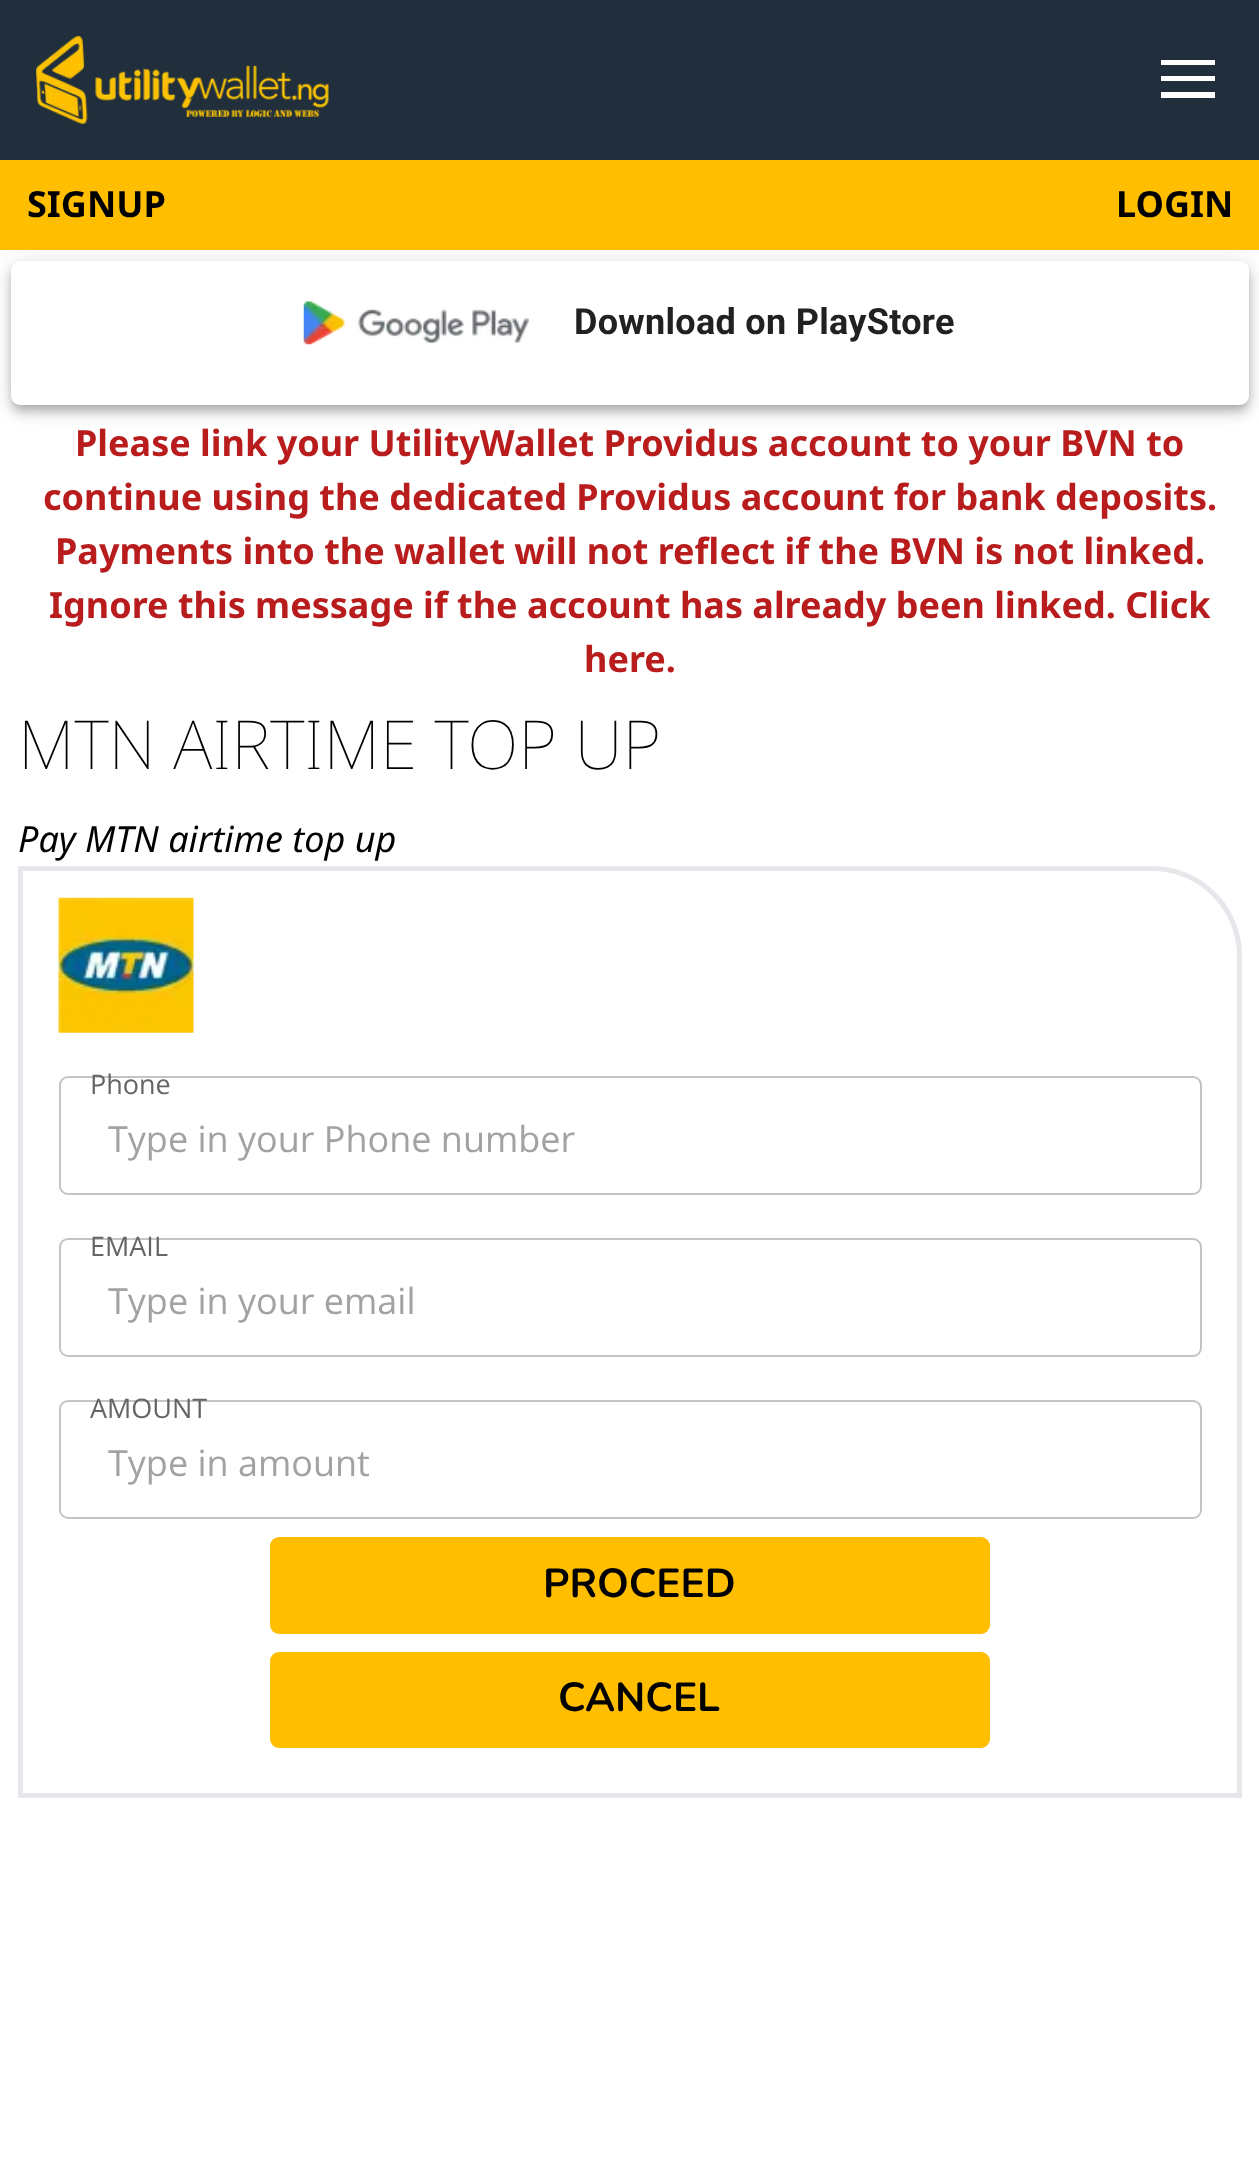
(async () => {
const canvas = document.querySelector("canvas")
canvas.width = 1259
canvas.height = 2161
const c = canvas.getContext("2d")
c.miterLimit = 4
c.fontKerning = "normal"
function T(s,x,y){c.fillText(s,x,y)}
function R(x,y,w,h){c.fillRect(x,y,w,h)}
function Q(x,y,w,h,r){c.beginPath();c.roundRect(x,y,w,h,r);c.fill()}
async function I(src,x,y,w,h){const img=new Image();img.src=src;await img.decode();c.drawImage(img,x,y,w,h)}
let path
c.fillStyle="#fff"
R(0,0,1259,2161)
c.fillStyle="#212f3d"
R(0,0,1259,160)
await I("1.png",36,36,293,88)
c.fillStyle="#fff"
path = new Path2D("M1161 60h54v5h-54zm0 16h54v5h-54zm0 16h54v6h-54z")
c.fill(path)
c.fillStyle="#ffbf00"
R(0,160,1259,90)
c.font="bold 36px Noto Sans"
c.fillStyle="#000"
T("SIGNUP",27,217)
T("LOGIN",1116,217)
c.fillStyle="#0000001f"
c.filter="blur(11px)"
c.beginPath()
c.roundRect(11,263,1238,144,9)
c.fill()
c.filter="none"
c.fillStyle="#00000024"
c.filter="blur(5.5px)"
c.beginPath()
c.roundRect(11,270,1238,144,9)
c.fill()
c.filter="none"
c.fillStyle="#00000033"
c.filter="blur(4.5px)"
c.beginPath()
c.roundRect(14,268,1233,139,7)
c.fill()
c.filter="none"
c.fillStyle="#fff"
Q(11,261,1238,144,9)
await I("2.png",303,301,226,44)
c.letterSpacing="0.3px"
c.font="bold 36px Roboto"
c.fillStyle="#212121"
T("Download on PlayStore",574,334)
c.letterSpacing="0px"
c.font="bold 36px Noto Sans"
c.fillStyle="#b91c1c"
T("Please link your UtilityWallet Providus account to your BVN to",75,456)
T("continue using the dedicated Providus account for bank deposits.",43,510)
T("Payments into the wallet will not reflect if the BVN is not linked.",55,564)
T("Ignore this message if the account has already been linked. Click",49,618)
T("here.",584,672)
c.font="100 67.5px Noto Sans"
c.fillStyle="#000"
T("MTN AIRTIME TOP UP",18,769)
c.font="italic 36px Noto Sans"
T("Pay MTN airtime top up",18,852)
c.beginPath()
c.roundRect(20.5,868.5,1219,927,[0,87.5,0,0])
c.strokeStyle="#e5e7eb"
c.lineWidth=5
c.stroke()
await I("3.png",58,897,136,136)
c.beginPath()
c.roundRect(60,1077,1141,117,8)
c.strokeStyle="#c4c4c4"
c.lineWidth=2
c.stroke()
c.font="27px Open Sans"
c.fillStyle="#656565"
T("Phone",90,1094)
c.font="36px Open Sans"
c.fillStyle="#a2a2a2"
T("Type in your Phone number",108,1152)
c.beginPath()
c.roundRect(60,1239,1141,117,8)
c.stroke()
c.font="27px Open Sans"
c.fillStyle="#656565"
T("EMAIL",90,1256)
c.font="36px Open Sans"
c.fillStyle="#a2a2a2"
T("Type in your email",108,1314)
c.beginPath()
c.roundRect(60,1401,1141,117,8)
c.stroke()
c.font="27px Open Sans"
c.fillStyle="#656565"
T("AMOUNT",90,1418)
c.font="36px Open Sans"
c.fillStyle="#a2a2a2"
T("Type in amount",108,1476)
c.fillStyle="#ffbf00"
Q(270,1537,720,97,9)
c.font="bold 40.5px Nunito"
c.fillStyle="#000"
T("PROCEED",543,1597)
c.fillStyle="#ffbf00"
Q(270,1652,720,96,9)
c.fillStyle="#000"
T("CANCEL",558,1711)
})()
